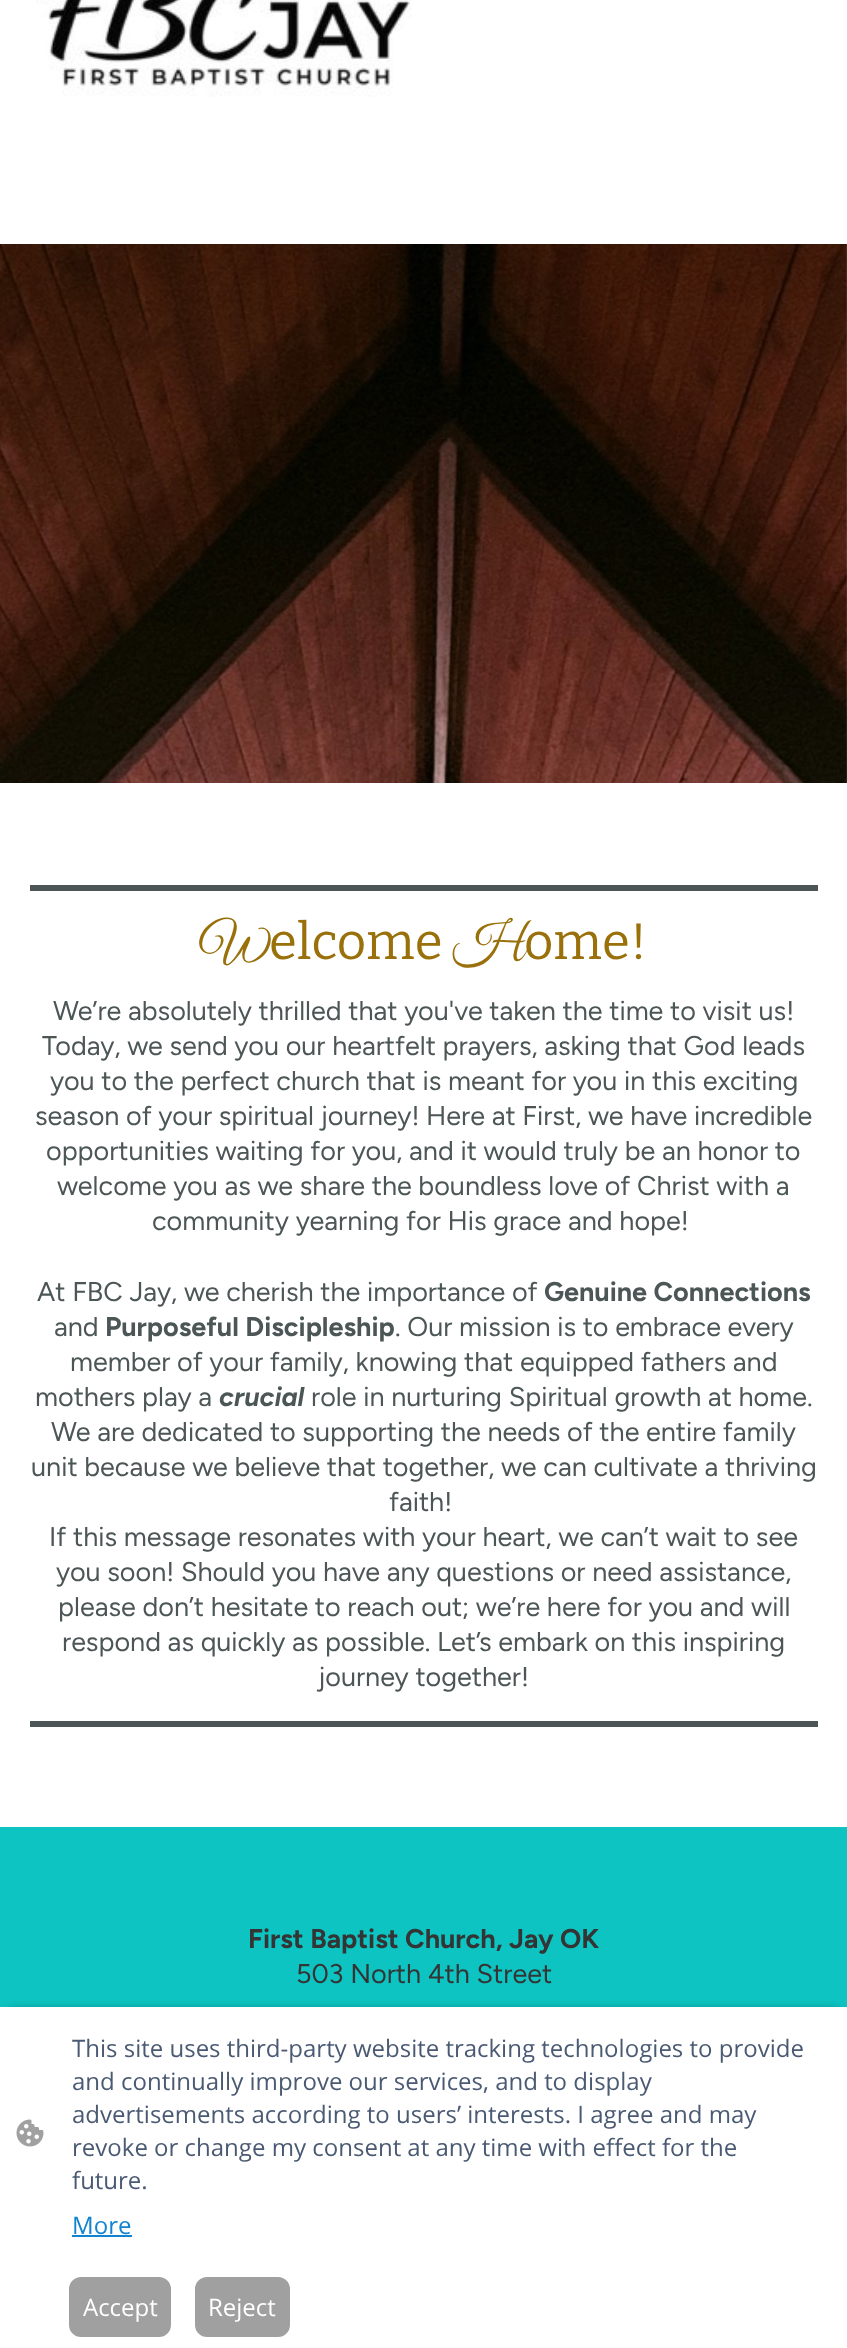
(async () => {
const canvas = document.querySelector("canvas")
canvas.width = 847
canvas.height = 2348
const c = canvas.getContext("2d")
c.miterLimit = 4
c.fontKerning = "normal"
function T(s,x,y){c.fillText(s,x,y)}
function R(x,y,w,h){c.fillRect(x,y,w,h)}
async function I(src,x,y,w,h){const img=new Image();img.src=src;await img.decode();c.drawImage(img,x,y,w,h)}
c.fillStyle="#fff"
R(0,0,847,2348)
await I("1.png",36,0,376,97)
await I("2.png",0,244,847,539)
c.fillStyle="#4d5656"
R(30,885,788,6)
c.font="51px Great Vibes"
c.fillStyle="#99700a"
T("W",200,959)
c.font="51px Bitter"
T("elcome",269,959)
c.font="51px Great Vibes"
T("H",453,959)
c.font="51px Bitter"
T("ome!",524,959)
c.font="27px Figtree"
c.fillStyle="#4d5656"
T("We’re absolutely thrilled that you've taken the time to visit us!",53,1020)
T("Today, we send you our heartfelt prayers, asking that God leads",42,1055)
T("you to the perfect church that is meant for you in this exciting",50,1090)
T("season of your spiritual journey! Here at First, we have incredible",35,1125)
T("opportunities waiting for you, and it would truly be an honor to",46,1160)
T("welcome you as we share the boundless love of Christ with a",57,1195)
T("community yearning for His grace and hope!",152,1230)
T("At FBC Jay, we cherish the importance of",37,1301)
c.font="bold 27px Figtree"
T("Genuine Connections",544,1301)
c.font="27px Figtree"
T("and",54,1336)
c.font="bold 27px Figtree"
T("Purposeful Discipleship",105,1336)
c.font="27px Figtree"
T(". Our mission is to embrace every",395,1336)
T("member of your family, knowing that equipped fathers and",70,1371)
T("mothers play a",35,1406)
c.font="italic bold 27px Figtree"
T("crucial",219,1406)
c.font="27px Figtree"
T("role in nurturing Spiritual growth at home.",311,1406)
T("We are dedicated to supporting the needs of the entire family",51,1441)
T("unit because we believe that together, we can cultivate a thriving",31,1476)
T("faith!",389,1511)
T("If this message resonates with your heart, we can’t wait to see",49,1546)
T("you soon! Should you have any questions or need assistance,",56,1581)
T("please don’t hesitate to reach out; we’re here for you and will",58,1616)
T("respond as quickly as possible. Let’s embark on this inspiring",62,1651)
T("journey together!",318,1686)
R(30,1721,788,6)
c.fillStyle="#0dc4c2"
R(0,1827,847,180)
c.font="bold 27px Figtree"
c.fillStyle="#343434"
T("First Baptist Church, Jay OK",248,1948)
c.font="27px Figtree"
T("503 North 4th Street",296,1983)
c.fillStyle="#000000a1"
c.filter="blur(6px)"
c.beginPath()
c.rect(9,2012,830,324)
c.fill()
c.filter="none"
c.fillStyle="#fff"
R(0,2007,847,341)
await I("3.png",16,2119,28,28)
c.font="24px Open Sans"
c.fillStyle="#4a5a73"
T("This site uses third-party website tracking technologies to provide",72,2057)
T("and continually improve our services, and to display",72,2090)
T("advertisements according to users’ interests. I agree and may",72,2123)
T("revoke or change my consent at any time with effect for the",72,2156)
T("future.",72,2189)
c.fillStyle="#1183d1"
T("More",72,2234)
R(72,2235,60,2)
c.fillStyle="#a0a0a0"
c.beginPath()
c.roundRect(70,2278,100,58,11)
c.fill()
c.strokeStyle="#a0a0a0"
c.lineWidth=2
c.stroke()
c.fillStyle="#fff"
T("Accept",83,2316)
c.fillStyle="#a0a0a0"
c.beginPath()
c.roundRect(196,2278,93,58,11)
c.fill()
c.stroke()
c.fillStyle="#fff"
T("Reject",208,2316)
})()
